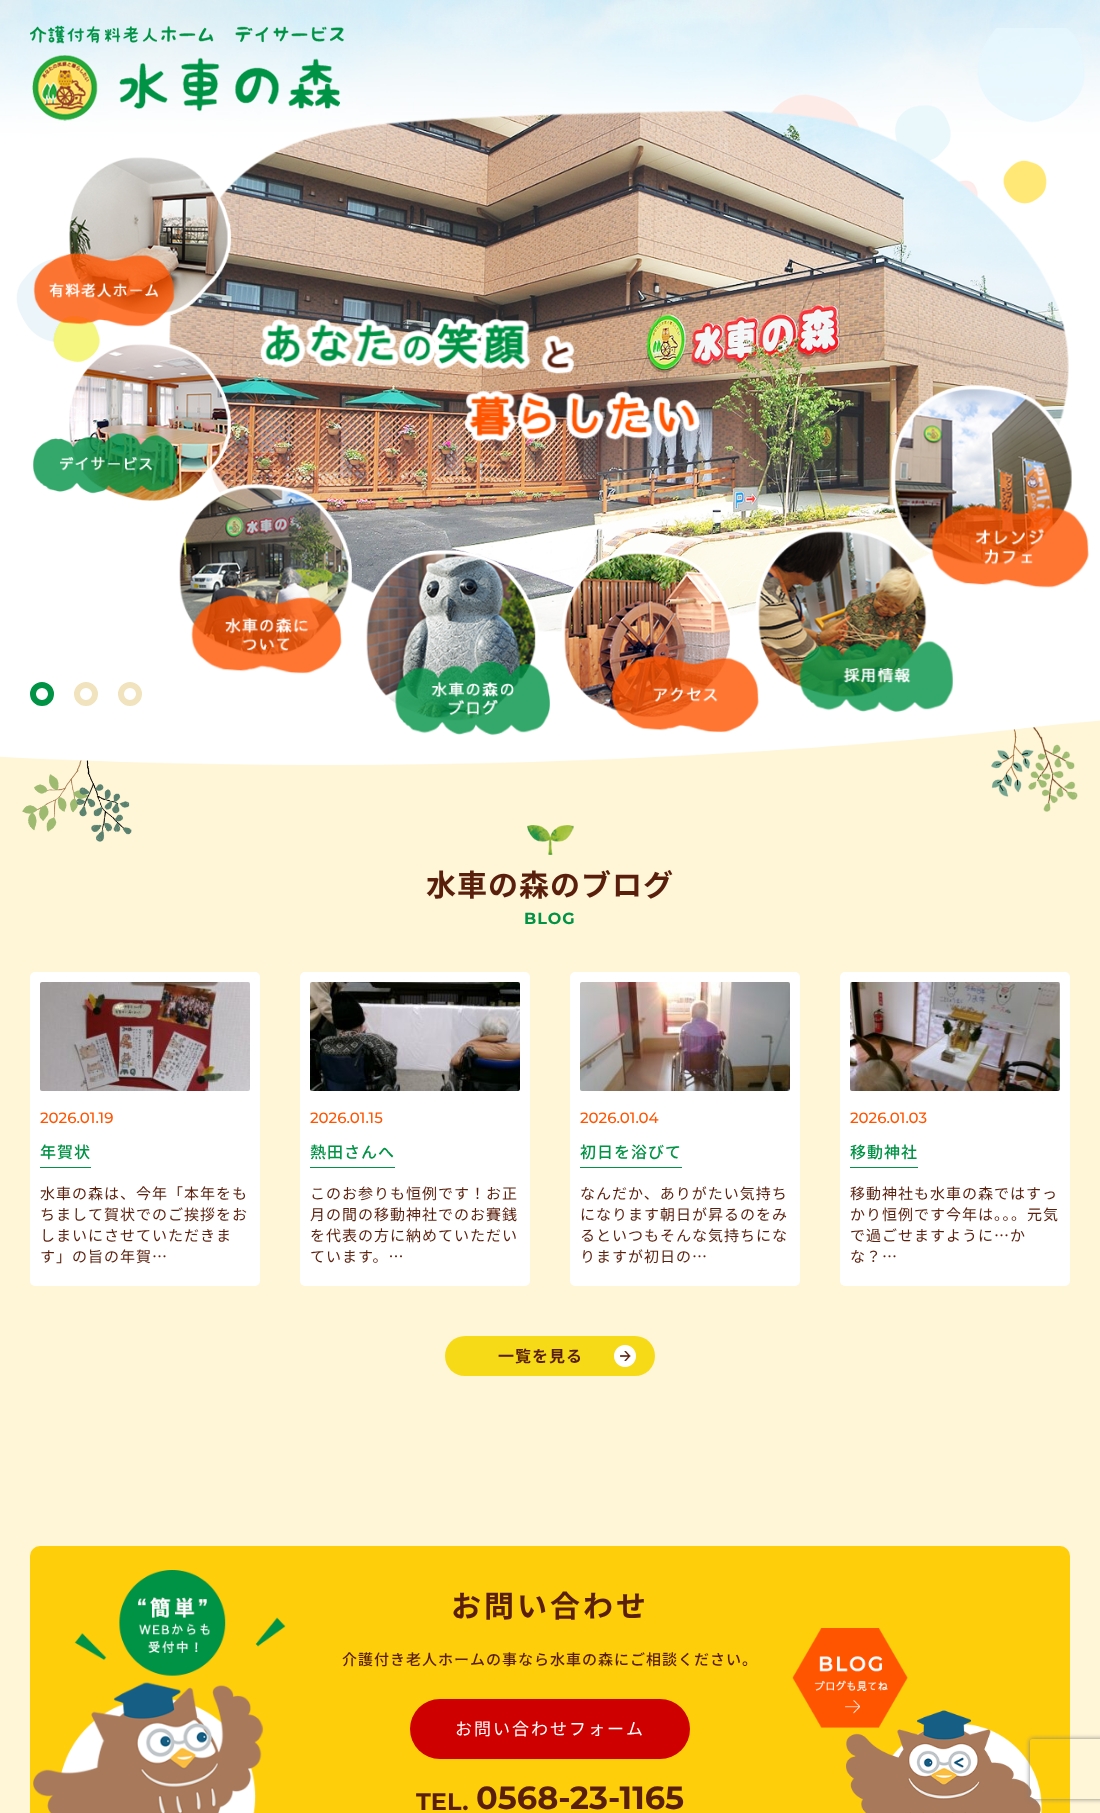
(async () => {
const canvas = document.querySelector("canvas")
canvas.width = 1100
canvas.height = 1813
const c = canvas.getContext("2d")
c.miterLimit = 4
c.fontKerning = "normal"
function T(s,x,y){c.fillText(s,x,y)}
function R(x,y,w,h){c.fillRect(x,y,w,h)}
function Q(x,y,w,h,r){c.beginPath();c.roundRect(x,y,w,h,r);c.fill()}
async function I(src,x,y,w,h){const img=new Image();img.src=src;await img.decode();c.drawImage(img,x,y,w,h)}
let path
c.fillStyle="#fff5d7"
R(0,0,1100,1813)
await I("11.png",22,760,110,82)
await I("12.png",991,726,87,86)
await I("1.png",0,0,1100,765)
await I("2.png",169,110,900,522)
c.beginPath()
c.arc(42,694,9,0,7)
c.strokeStyle="#009245"
c.lineWidth=6
c.stroke()
c.beginPath()
c.arc(86,694,9,0,7)
c.strokeStyle="#f0e3bd"
c.stroke()
c.beginPath()
c.arc(130,694,9,0,7)
c.stroke()
await I("3.png",33,157,198,170)
await I("4.png",33,344,198,157)
await I("5.png",260,318,440,124)
await I("9.png",561,551,198,182)
await I("10.png",755,528,198,184)
await I("6.png",891,385,198,203)
await I("7.png",179,484,173,190)
await I("8.png",366,550,184,185)
await I("13.png",30,25,314,96)
await I("14.png",527,825,47,30)
c.letterSpacing="1px"
c.font="bold 30px Noto Sans JP"
c.fillStyle="#591f0c"
T("水車の森のブログ",426,896)
c.font="bold 16px Montserrat"
c.fillStyle="#009245"
T("BLOG",524,924)
c.fillStyle="#fff"
Q(30,972,230,314,5)
await I("15.png",40,982,210,109)
c.letterSpacing="0px"
c.font="500 15px Montserrat"
c.fillStyle="#ff5400"
T("2026.01.19",40,1123)
c.letterSpacing="1px"
c.font="500 16px Noto Sans JP"
c.fillStyle="#009245"
T("年賀状",40,1158)
R(40,1167,51,1)
c.font="15px Noto Sans JP"
c.fillStyle="#591f0c"
T("水車の森は、今年「本年をも",40,1199)
T("ちまして賀状でのご挨拶をお",40,1220)
T("しまいにさせていただきま",40,1241)
T("す」の旨の年賀…",40,1262)
c.fillStyle="#fff"
Q(300,972,230,314,5)
await I("16.png",310,982,210,109)
c.letterSpacing="0px"
c.font="500 15px Montserrat"
c.fillStyle="#ff5400"
T("2026.01.15",310,1123)
c.letterSpacing="1px"
c.font="500 16px Noto Sans JP"
c.fillStyle="#009245"
T("熱田さんへ",310,1158)
R(310,1167,85,1)
c.font="15px Noto Sans JP"
c.fillStyle="#591f0c"
T("このお参りも恒例です！お正",310,1199)
T("月の間の移動神社でのお賽銭",310,1220)
T("を代表の方に納めていただい",310,1241)
T("ています。…",310,1262)
c.fillStyle="#fff"
Q(570,972,230,314,5)
await I("17.png",580,982,210,109)
c.letterSpacing="0px"
c.font="500 15px Montserrat"
c.fillStyle="#ff5400"
T("2026.01.04",580,1123)
c.letterSpacing="1px"
c.font="500 16px Noto Sans JP"
c.fillStyle="#009245"
T("初日を浴びて",580,1158)
R(580,1167,102,1)
c.font="15px Noto Sans JP"
c.fillStyle="#591f0c"
T("なんだか、ありがたい気持ち",580,1199)
T("になります朝日が昇るのをみ",580,1220)
T("るといつもそんな気持ちにな",580,1241)
T("りますが初日の…",580,1262)
c.fillStyle="#fff"
Q(840,972,230,314,5)
await I("18.png",850,982,210,109)
c.letterSpacing="0px"
c.font="500 15px Montserrat"
c.fillStyle="#ff5400"
T("2026.01.03",850,1123)
c.letterSpacing="1px"
c.font="500 16px Noto Sans JP"
c.fillStyle="#009245"
T("移動神社",850,1158)
R(850,1167,68,1)
c.font="15px Noto Sans JP"
c.fillStyle="#591f0c"
T("移動神社も水車の森ではすっ",850,1199)
T("かり恒例です今年は。。。元気",850,1220)
T("で過ごせますように…か",850,1241)
T("な？…",850,1262)
c.fillStyle="#f7da17"
Q(445,1336,210,40,20)
await I("19.png",614,1345,22,22)
c.font="bold 16px Noto Sans JP"
c.fillStyle="#591f0c"
T("一覧を見る",498,1362)
c.fillStyle="#ffce0b"
Q(30,1546,1040,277,10)
await I("20.png",33,1570,253,243)
c.letterSpacing="3px"
c.font="bold 30px Noto Sans JP"
c.fillStyle="#591f0c"
T("お問い合わせ",451,1617)
c.letterSpacing="1px"
c.font="500 15px Noto Sans JP"
T("介護付き老人ホームの事なら水車の森にご相談ください。",342,1665)
await I("21.png",792,1628,250,185)
c.fillStyle="#cf0000"
Q(410,1699,280,60,30)
c.letterSpacing="2px"
c.font="17px Noto Sans JP"
c.fillStyle="#fff"
T("お問い合わせフォーム",455,1735)
c.letterSpacing="0px"
c.font="bold 24px Montserrat"
c.fillStyle="#591f0c"
T("TEL.",416,1810)
c.font="bold 32px Montserrat"
T("0568-23-1165",476,1809)
c.save()
path = new Path2D("M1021 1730h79v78h-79zm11 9h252c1 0 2 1 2 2v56c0 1-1 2-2 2h-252c-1 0-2-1-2-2v-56c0-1 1-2 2-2z")
c.clip(path,"evenodd")
c.fillStyle="#808080"
c.filter="blur(2.5px)"
c.beginPath()
c.roundRect(1030,1739,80,60,2)
c.fill()
c.filter="none"
c.restore()
})()
